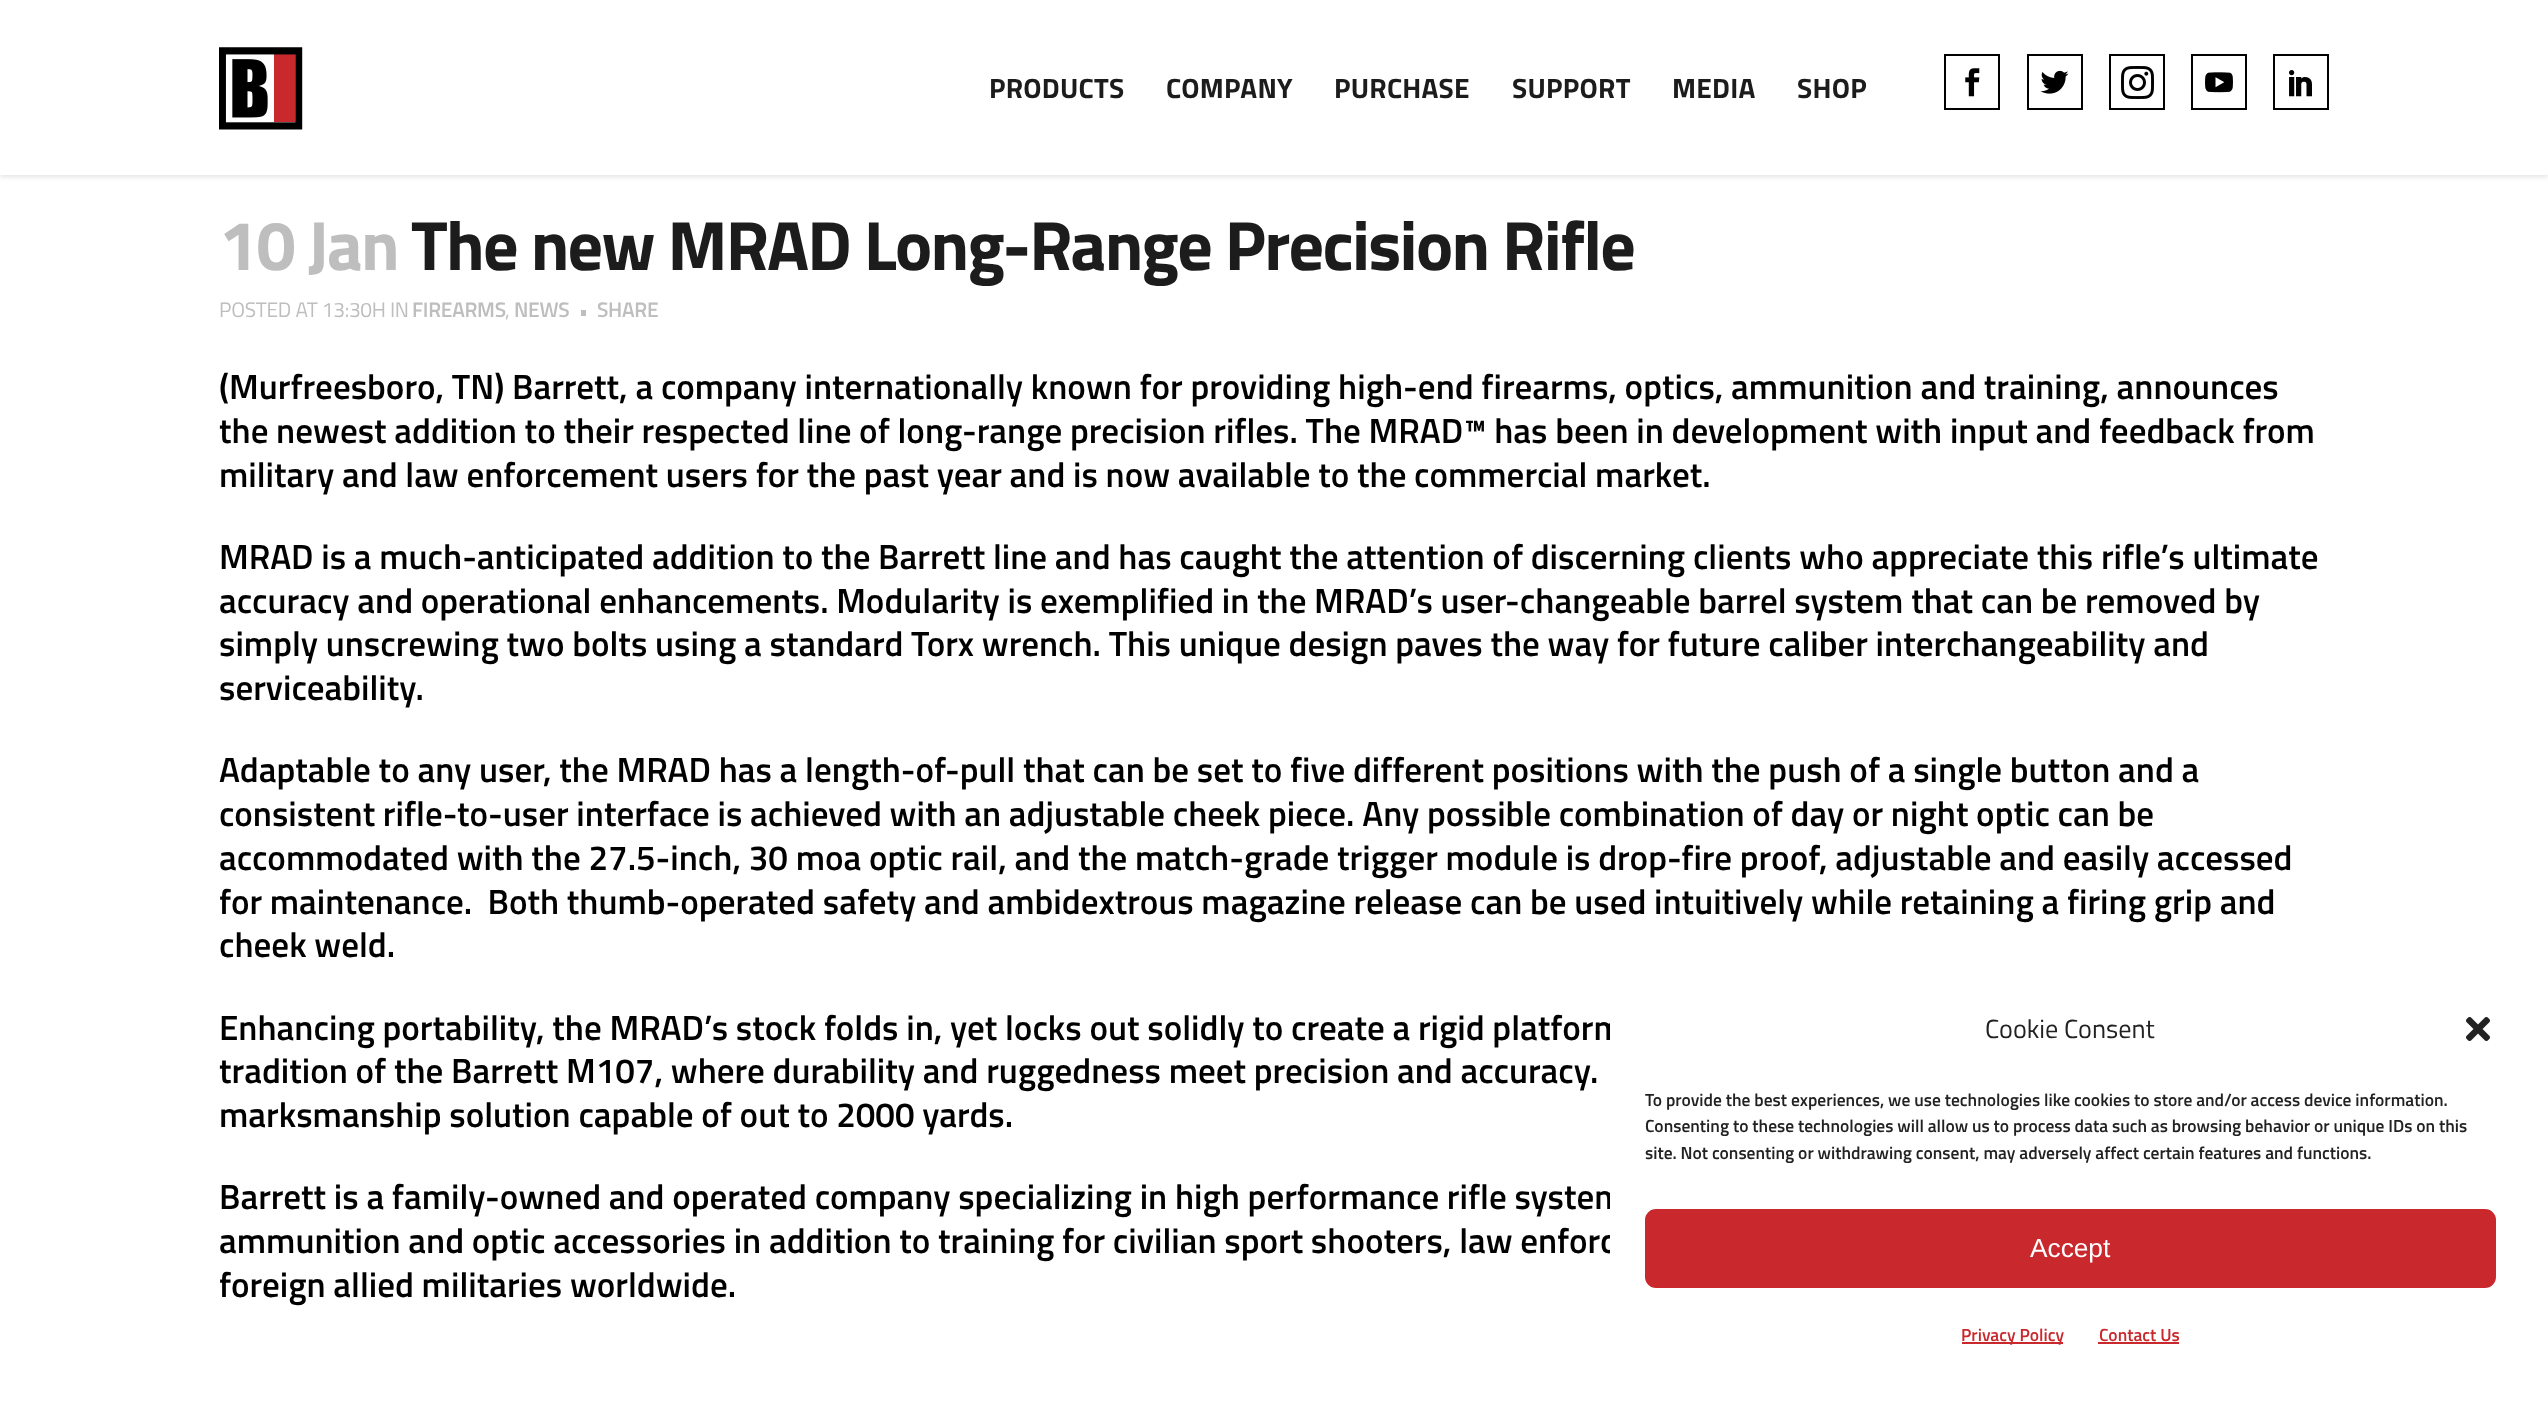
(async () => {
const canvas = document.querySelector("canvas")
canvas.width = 2548
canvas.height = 1401
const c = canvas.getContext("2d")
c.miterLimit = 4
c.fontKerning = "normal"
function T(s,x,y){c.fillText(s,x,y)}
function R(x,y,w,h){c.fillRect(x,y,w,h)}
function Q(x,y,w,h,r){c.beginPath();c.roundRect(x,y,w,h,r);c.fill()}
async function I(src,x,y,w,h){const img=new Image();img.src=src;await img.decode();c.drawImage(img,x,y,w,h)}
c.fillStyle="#fff"
R(0,0,2548,1401)
c.fillStyle="#0000001c"
c.filter="blur(2.5px)"
c.beginPath()
c.rect(0,2,2548,175)
c.fill()
c.filter="none"
c.fillStyle="#fff"
R(0,0,2548,175)
await I("1.png",219,47,84,83)
c.letterSpacing="0.25px"
c.font="bold 28px Titillium Web"
c.fillStyle="#1d1c1c"
T("PRODUCTS",989,98)
T("COMPANY",1166,98)
T("PURCHASE",1334,98)
T("SUPPORT",1512,98)
T("MEDIA",1672,98)
T("SHOP",1797,98)
c.strokeStyle="#000"
c.lineWidth=2
c.strokeRect(1945,55,54,54)
await I("2.png",1965,68,15,29)
c.strokeRect(2028,55,54,54)
await I("3.png",2040,70,29,24)
c.strokeRect(2110,55,54,54)
await I("4.png",2121,66,33,33)
c.strokeRect(2192,55,54,54)
await I("5.png",2205,72,28,21)
c.strokeRect(2274,55,54,54)
await I("6.png",2289,70,23,27)
c.letterSpacing="-1.75px"
c.font="bold 70px Titillium Web"
c.fillStyle="#bebebe"
T("10 Jan",219,270)
c.fillStyle="#1d1c1c"
T("The new MRAD Long-Range Precision Rifle",411,270)
c.letterSpacing="-0.3px"
c.font="21px Titillium Web"
c.fillStyle="#bebebe"
T("POSTED AT 13:30H IN",219,317)
c.font="600 21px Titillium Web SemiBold"
T("FIREARMS",412,317)
T("NEWS",514,317)
R(581,310,5,6)
T("SHARE",597,317)
c.font="21px Titillium Web"
T(",",505,317)
c.letterSpacing="0px"
c.font="600 35px Titillium Web SemiBold"
c.fillStyle="#000"
T("(Murfreesboro, TN) Barrett, a company internationally known for providing high-end firearms, optics, ammunition and training, announces",219,399)
T("the newest addition to their respected line of long-range precision rifles. The MRAD™ has been in development with input and feedback from",219,443)
T("military and law enforcement users for the past year and is now available to the commercial market.",219,487)
T("MRAD is a much-anticipated addition to the Barrett line and has caught the attention of discerning clients who appreciate this rifle’s ultimate",219,569)
T("accuracy and operational enhancements. Modularity is exemplified in the MRAD’s user-changeable barrel system that can be removed by",219,613)
T("simply unscrewing two bolts using a standard Torx wrench. This unique design paves the way for future caliber interchangeability and",219,656)
T("serviceability.",219,700)
T("Adaptable to any user, the MRAD has a length-of-pull that can be set to five different positions with the push of a single button and a",219,782)
T("consistent rifle-to-user interface is achieved with an adjustable cheek piece. Any possible combination of day or night optic can be",219,826)
T("accommodated with the 27.5-inch, 30 moa optic rail, and the match-grade trigger module is drop-fire proof, adjustable and easily accessed",219,870)
T("for maintenance.  Both thumb-operated safety and ambidextrous magazine release can be used intuitively while retaining a firing grip and",219,914)
T("cheek weld.",219,957)
T("Enhancing portability, the MRAD’s stock folds in, yet locks out solidly to create a rigid platform",219,1040)
T("tradition of the Barrett M107, where durability and ruggedness meet precision and accuracy.",219,1083)
T("marksmanship solution capable of out to 2000 yards.",219,1127)
T("Barrett is a family-owned and operated company specializing in high performance rifle system",219,1209)
T("ammunition and optic accessories in addition to training for civilian sport shooters, law enforc",219,1253)
T("foreign allied militaries worldwide.",219,1297)
c.fillStyle="#fff"
Q(1610,980,921,404,21)
c.font="26.25px Titillium Web"
c.fillStyle="#222"
T("Cookie Consent",1985,1038)
await I("7.png",2466,1017,24,24)
c.font="600 17.5px Titillium Web SemiBold"
T("To provide the best experiences, we use technologies like cookies to store and/or access device information.",1645,1106)
T("Consenting to these technologies will allow us to process data such as browsing behavior or unique IDs on this",1645,1132)
T("site. Not consenting or withdrawing consent, may adversely affect certain features and functions.",1645,1159)
c.fillStyle="#c9282d"
c.beginPath()
c.roundRect(1646,1210,849,77,10)
c.fill()
c.strokeStyle="#c9282d"
c.stroke()
c.font="26.25px Liberation Sans"
c.fillStyle="#fff"
T("Accept",2030,1257)
c.fillStyle="#c9282d"
R(1962,1342,101,2)
c.font="600 17.5px Titillium Web SemiBold"
T("Privacy Policy",1961,1341)
T("Contact Us",2099,1341)
R(2098,1342,81,2)
})()
